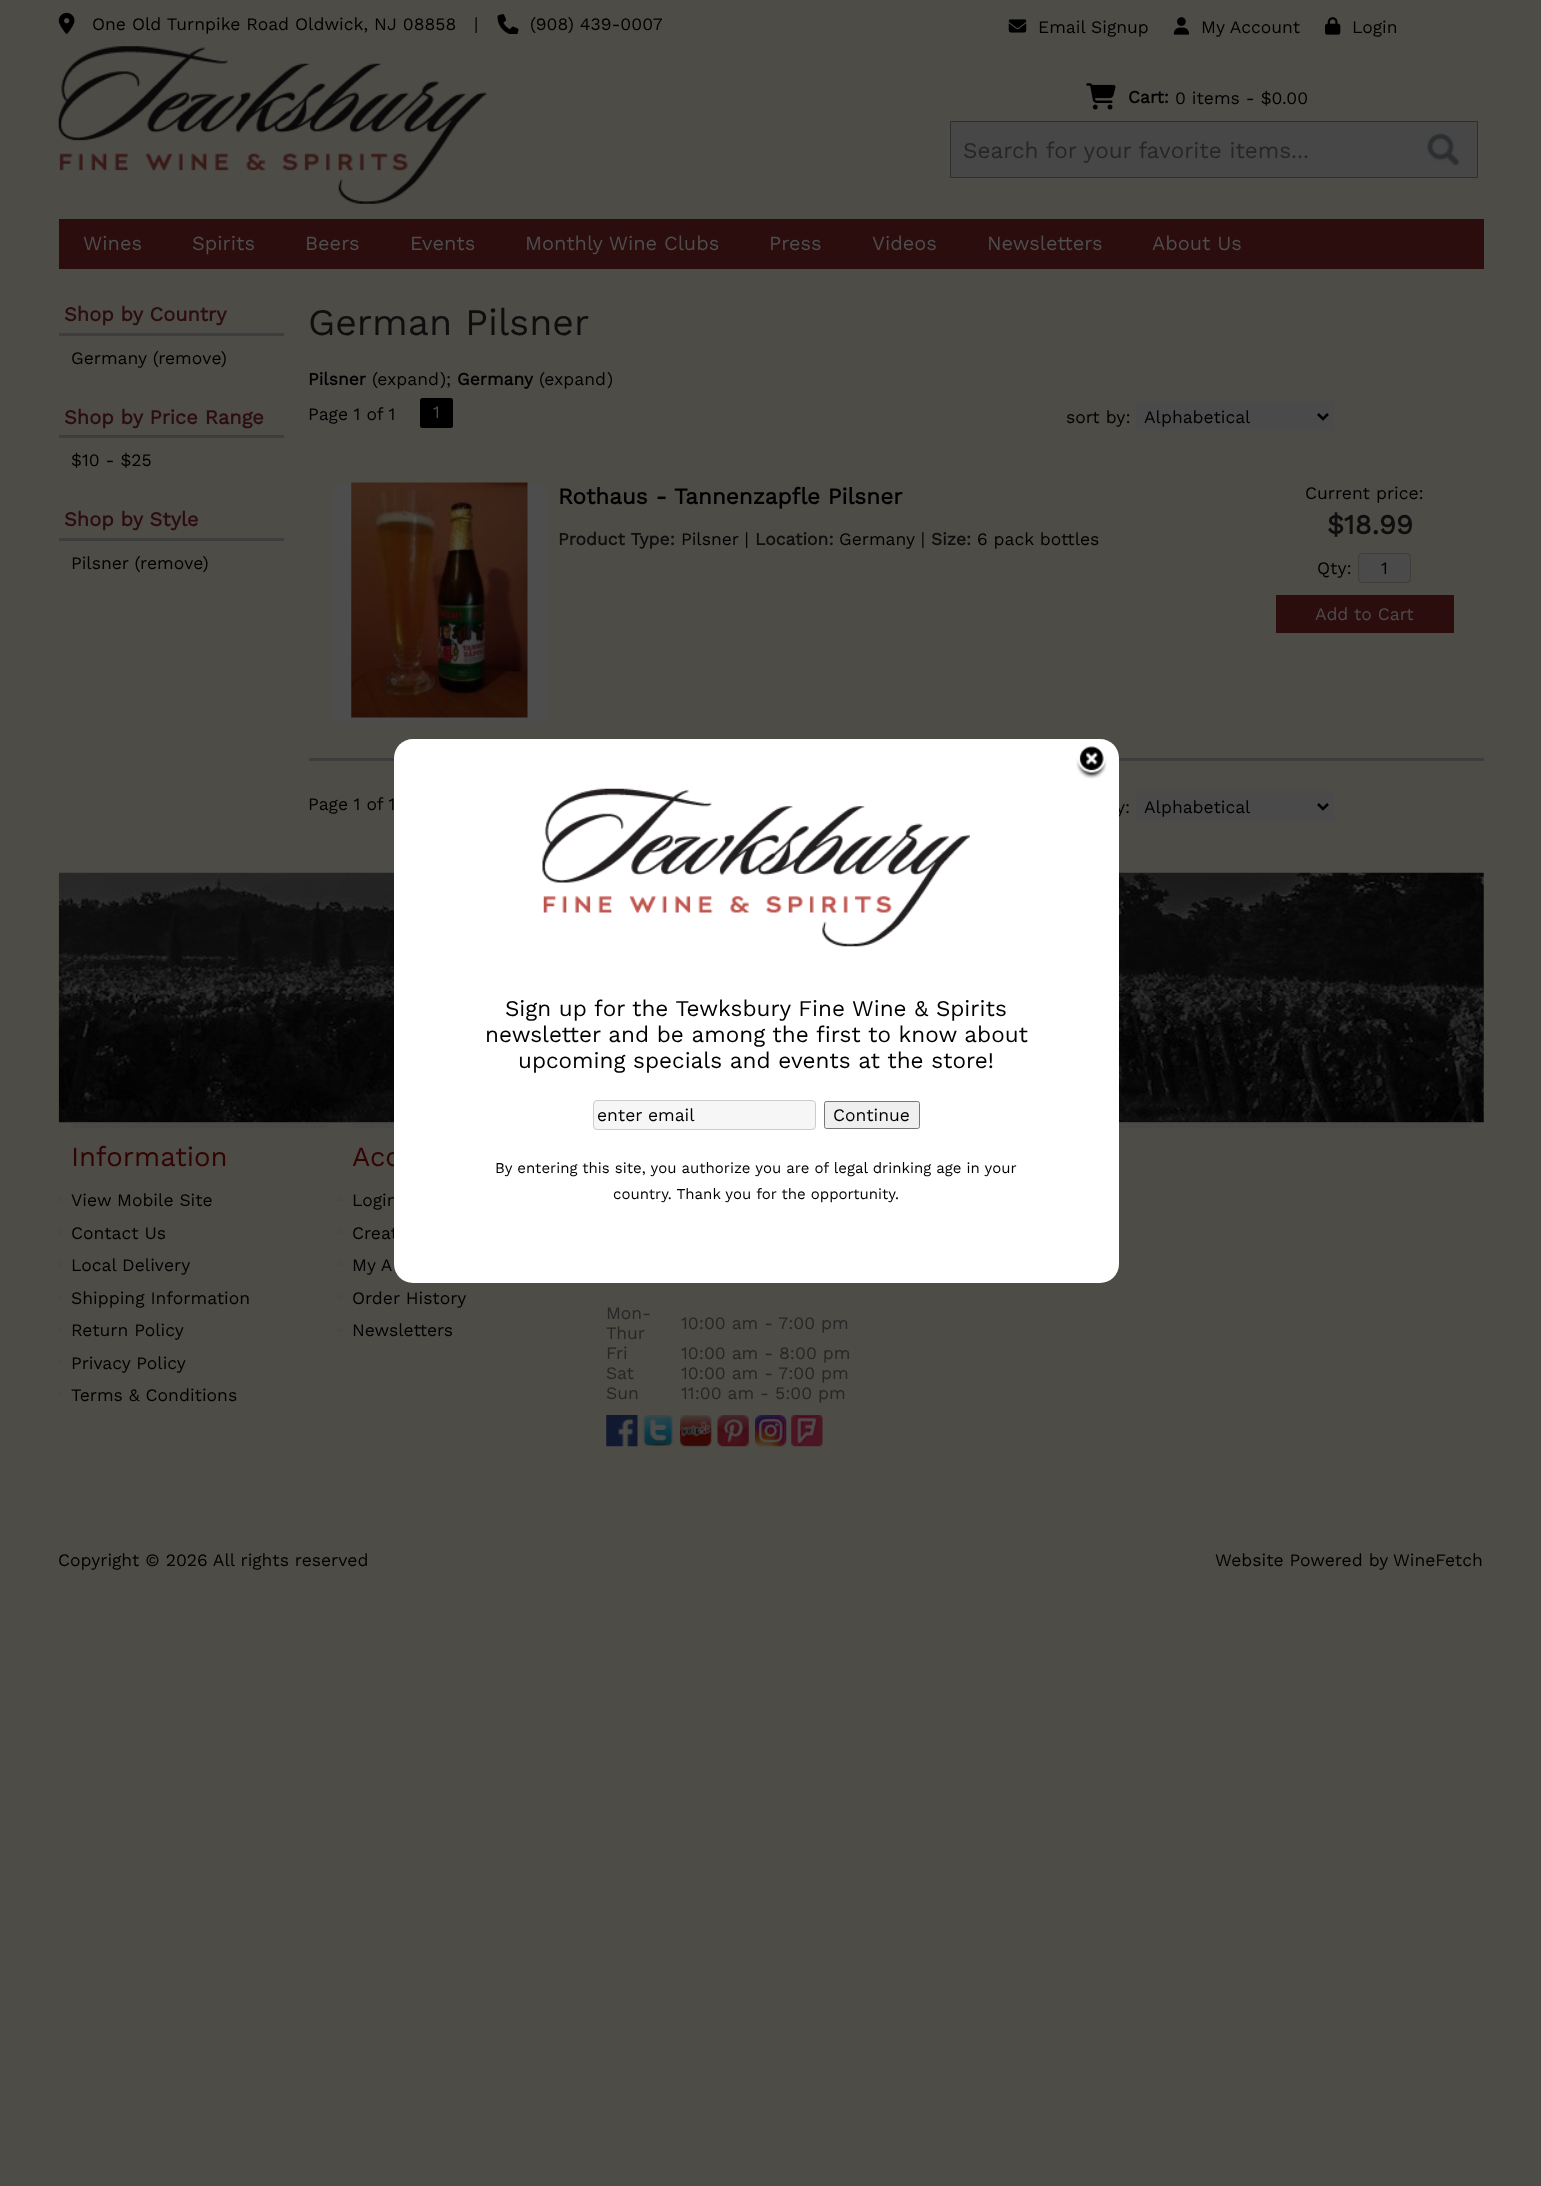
(async () => {
const canvas = document.querySelector("canvas")
canvas.width = 1541
canvas.height = 2186
const c = canvas.getContext("2d")
c.miterLimit = 4
c.fontKerning = "normal"
function T(s,x,y){c.fillText(s,x,y)}
function R(x,y,w,h){c.fillRect(x,y,w,h)}
function Q(x,y,w,h,r){c.beginPath();c.roundRect(x,y,w,h,r);c.fill()}
async function I(src,x,y,w,h){const img=new Image();img.src=src;await img.decode();c.drawImage(img,x,y,w,h)}
let path
c.fillStyle="#4d4c47"
R(0,0,1541,2186)
await I("1.png",58,12,17,22)
c.font="17.5px Work Sans"
c.fillStyle="#000"
T("One Old Turnpike Road Oldwick, NJ 08858",92,30)
T("|",474,30)
await I("2.png",497,14,22,20)
T("(908) 439-0007",530,30)
await I("3.png",1008,19,19,14)
T("Email Signup",1038,33)
await I("4.png",1173,17,17,18)
T("My Account",1201,33)
await I("5.png",1325,17,16,18)
T("Login",1352,33)
await I("6.png",58,46,429,158)
await I("7.png",1086,83,30,27)
c.font="bold 17.5px Work Sans"
T("Cart:",1128,103)
c.font="17.5px Work Sans"
T("0 items - $0.00",1175,104)
c.fillStyle="#474747"
c.beginPath()
c.rect(950.5,121.5,527,56)
c.fill()
c.strokeStyle="#2e2e2e"
c.stroke()
c.font="22.5px Work Sans"
c.fillStyle="#262626"
T("Search for your favorite items...",963,158)
await I("8.png",1427,133,32,32)
c.fillStyle="#2c0d0e"
R(59,219,1425,50)
c.font="20px Work Sans"
c.fillStyle="#4d4d4d"
T("Wines",83,250)
T("Spirits",192,250)
T("Beers",305,250)
T("Events",410,250)
T("Monthly Wine Clubs",525,250)
T("Press",769,250)
T("Videos",872,250)
T("Newsletters",987,250)
T("About Us",1152,250)
c.fillStyle="#3d3d3d"
R(59,333,225,3)
c.font="bold 20px Work Sans"
c.fillStyle="#2c0d0e"
T("Shop by Country",64,321)
c.font="17.5px Work Sans"
c.fillStyle="#000"
T("Germany (remove)",71,364)
c.fillStyle="#3d3d3d"
R(59,435,225,3)
c.font="bold 20px Work Sans"
c.fillStyle="#2c0d0e"
T("Shop by Price Range",64,424)
c.font="17.5px Work Sans"
c.fillStyle="#000"
T("$10 - $25",71,466)
c.fillStyle="#3d3d3d"
R(59,538,225,3)
c.font="bold 20px Work Sans"
c.fillStyle="#2c0d0e"
T("Shop by Style",64,526)
c.font="17.5px Work Sans"
c.fillStyle="#000"
T("Pilsner (remove)",71,569)
c.font="37.5px Work Sans"
c.fillStyle="#0e0e0e"
T("German Pilsner",308,335)
c.font="bold 17.5px Work Sans"
c.fillStyle="#000"
T("Pilsner",308,385)
c.font="17.5px Work Sans"
T("(expand",372,385)
T(");",440,385)
c.font="bold 17.5px Work Sans"
T("Germany",457,385)
c.font="17.5px Work Sans"
T("(expand",539,385)
T(")",607,385)
T("Page 1 of 1",308,420)
Q(420,398,33,30,2.5)
c.fillStyle="#4d4d4d"
T("1",433,418)
c.fillStyle="#000"
T("sort by:",1066,423)
c.fillStyle="#4a4a4a"
R(1136,401,199,30)
path = new Path2D("M1318 414l5 5l5-5")
c.strokeStyle="#000"
c.lineWidth=2.5
c.stroke(path)
c.fillStyle="#000"
T("Alphabetical",1144,423)
c.fillStyle="#3d3d3d"
R(309,758,1175,3)
c.fillStyle="#4d4d4d"
R(334,483,212,238)
await I("9.png",351,482,177,236)
c.font="bold 22.5px Work Sans"
c.fillStyle="#000"
T("Rothaus - Tannenzapfle Pilsner",558,504)
c.font="bold 17.5px Work Sans"
c.fillStyle="#0e0e0e"
T("Product Type:",558,545)
c.font="17.5px Work Sans"
c.fillStyle="#000"
T("Pilsner |",681,545)
c.font="bold 17.5px Work Sans"
c.fillStyle="#0e0e0e"
T("Location:",755,545)
c.font="17.5px Work Sans"
c.fillStyle="#000"
T("Germany |",839,545)
c.font="bold 17.5px Work Sans"
c.fillStyle="#0e0e0e"
T("Size:",931,545)
c.font="17.5px Work Sans"
c.fillStyle="#000"
T("6 pack bottles",977,545)
T("Current price:",1305,499)
c.font="bold 27.5px Work Sans"
c.fillStyle="#0e0e0e"
T("$18.99",1327,534)
c.font="17.5px Work Sans"
c.fillStyle="#000"
T("Qty:",1317,574)
c.fillStyle="#4a4a4a"
c.beginPath()
c.roundRect(1358.5,553.5,52,29,3.5)
c.fill()
c.strokeStyle="#3d3d3d"
c.lineWidth=1
c.stroke()
c.fillStyle="#000"
T("1",1381,574)
c.fillStyle="#2c0d0e"
R(1276,595,178,38)
c.fillStyle="#4d4d4d"
T("Add to Cart",1315,620)
c.fillStyle="#000"
T("Page 1 of 1",308,810)
T("y:",1116,813)
c.fillStyle="#4a4a4a"
R(1136,791,199,30)
path = new Path2D("M1318 804l5 5l5-5")
c.strokeStyle="#000"
c.lineWidth=2.5
c.stroke(path)
c.fillStyle="#000"
T("Alphabetical",1144,813)
await I("10.png",58,872,1426,251)
c.font="27.5px Work Sans"
c.fillStyle="#310403"
T("Acc",352,1166)
c.font="17.5px Work Sans"
c.fillStyle="#000"
T("Login",352,1206)
T("Creat",352,1239)
c.fillStyle="#fff"
Q(394,739,725,544,19)
await I("11.png",1076,746,31,33)
await I("12.png",542,788,428,159)
c.font="22.5px Work Sans"
c.fillStyle="#000"
T("Sign up for the Tewksbury Fine Wine & Spirits",505,1016)
T("newsletter and be among the first to know about",485,1042)
T("upcoming specials and events at the store!",518,1068)
c.fillStyle="#f6f6f6"
c.beginPath()
c.roundRect(593.5,1100.5,222,29,3.5)
c.fill()
c.strokeStyle="#ccc"
c.lineWidth=1
c.stroke()
c.font="17.5px Work Sans"
c.fillStyle="#000"
T("enter email",597,1121)
c.fillStyle="#efefef"
c.beginPath()
c.roundRect(824.5,1101.5,95,27,2)
c.fill()
c.strokeStyle="#767676"
c.stroke()
c.fillStyle="#000"
T("Continue",833,1121)
c.font="15px Work Sans"
T("By entering this site, you authorize you are of legal drinking age in your",495,1173)
T("country. Thank you for the opportunity.",613,1199)
await I("13.png",71,1122,257,6)
c.font="27.5px Work Sans"
c.fillStyle="#310403"
T("Information",71,1166)
await I("14.png",59,1196,4,6)
c.font="17.5px Work Sans"
c.fillStyle="#000"
T("View Mobile Site",71,1206)
await I("15.png",59,1229,4,5)
T("Contact Us",71,1239)
await I("14.png",59,1261,4,6)
T("Local Delivery",71,1271)
await I("15.png",59,1294,4,5)
T("Shipping Information",71,1304)
await I("14.png",59,1326,4,6)
T("Return Policy",71,1336)
await I("15.png",59,1359,4,5)
T("Privacy Policy",71,1369)
await I("14.png",59,1391,4,6)
T("Terms & Conditions",71,1401)
await I("16.png",352,1122,42,6)
await I("17.png",337,1196,7,6)
await I("18.png",337,1229,7,5)
await I("17.png",337,1261,7,6)
T("My A",352,1271)
await I("18.png",337,1294,7,5)
T("Order History",352,1304)
await I("17.png",337,1326,7,6)
T("Newsletters",352,1336)
await I("19.png",1119,1122,350,6)
c.fillStyle="#262626"
T("Mon-",606,1319)
T("Thur",606,1339)
T("10:00 am - 7:00 pm",681,1329)
T("Fri",606,1359)
T("10:00 am - 8:00 pm",681,1359)
T("Sat",606,1379)
T("10:00 am - 7:00 pm",681,1379)
T("Sun",606,1399)
T("11:00 am - 5:00 pm",681,1399)
await I("20.png",606,1415,32,32)
await I("21.png",643,1415,30,32)
await I("22.png",680,1415,32,32)
await I("23.png",717,1415,32,32)
await I("24.png",755,1415,32,32)
await I("25.png",791,1415,32,32)
c.fillStyle="#000"
T("Copyright © 2026 All rights reserved",58,1566)
T("Website Powered by",1215,1566)
T("WineFetch",1393,1566)
})()
